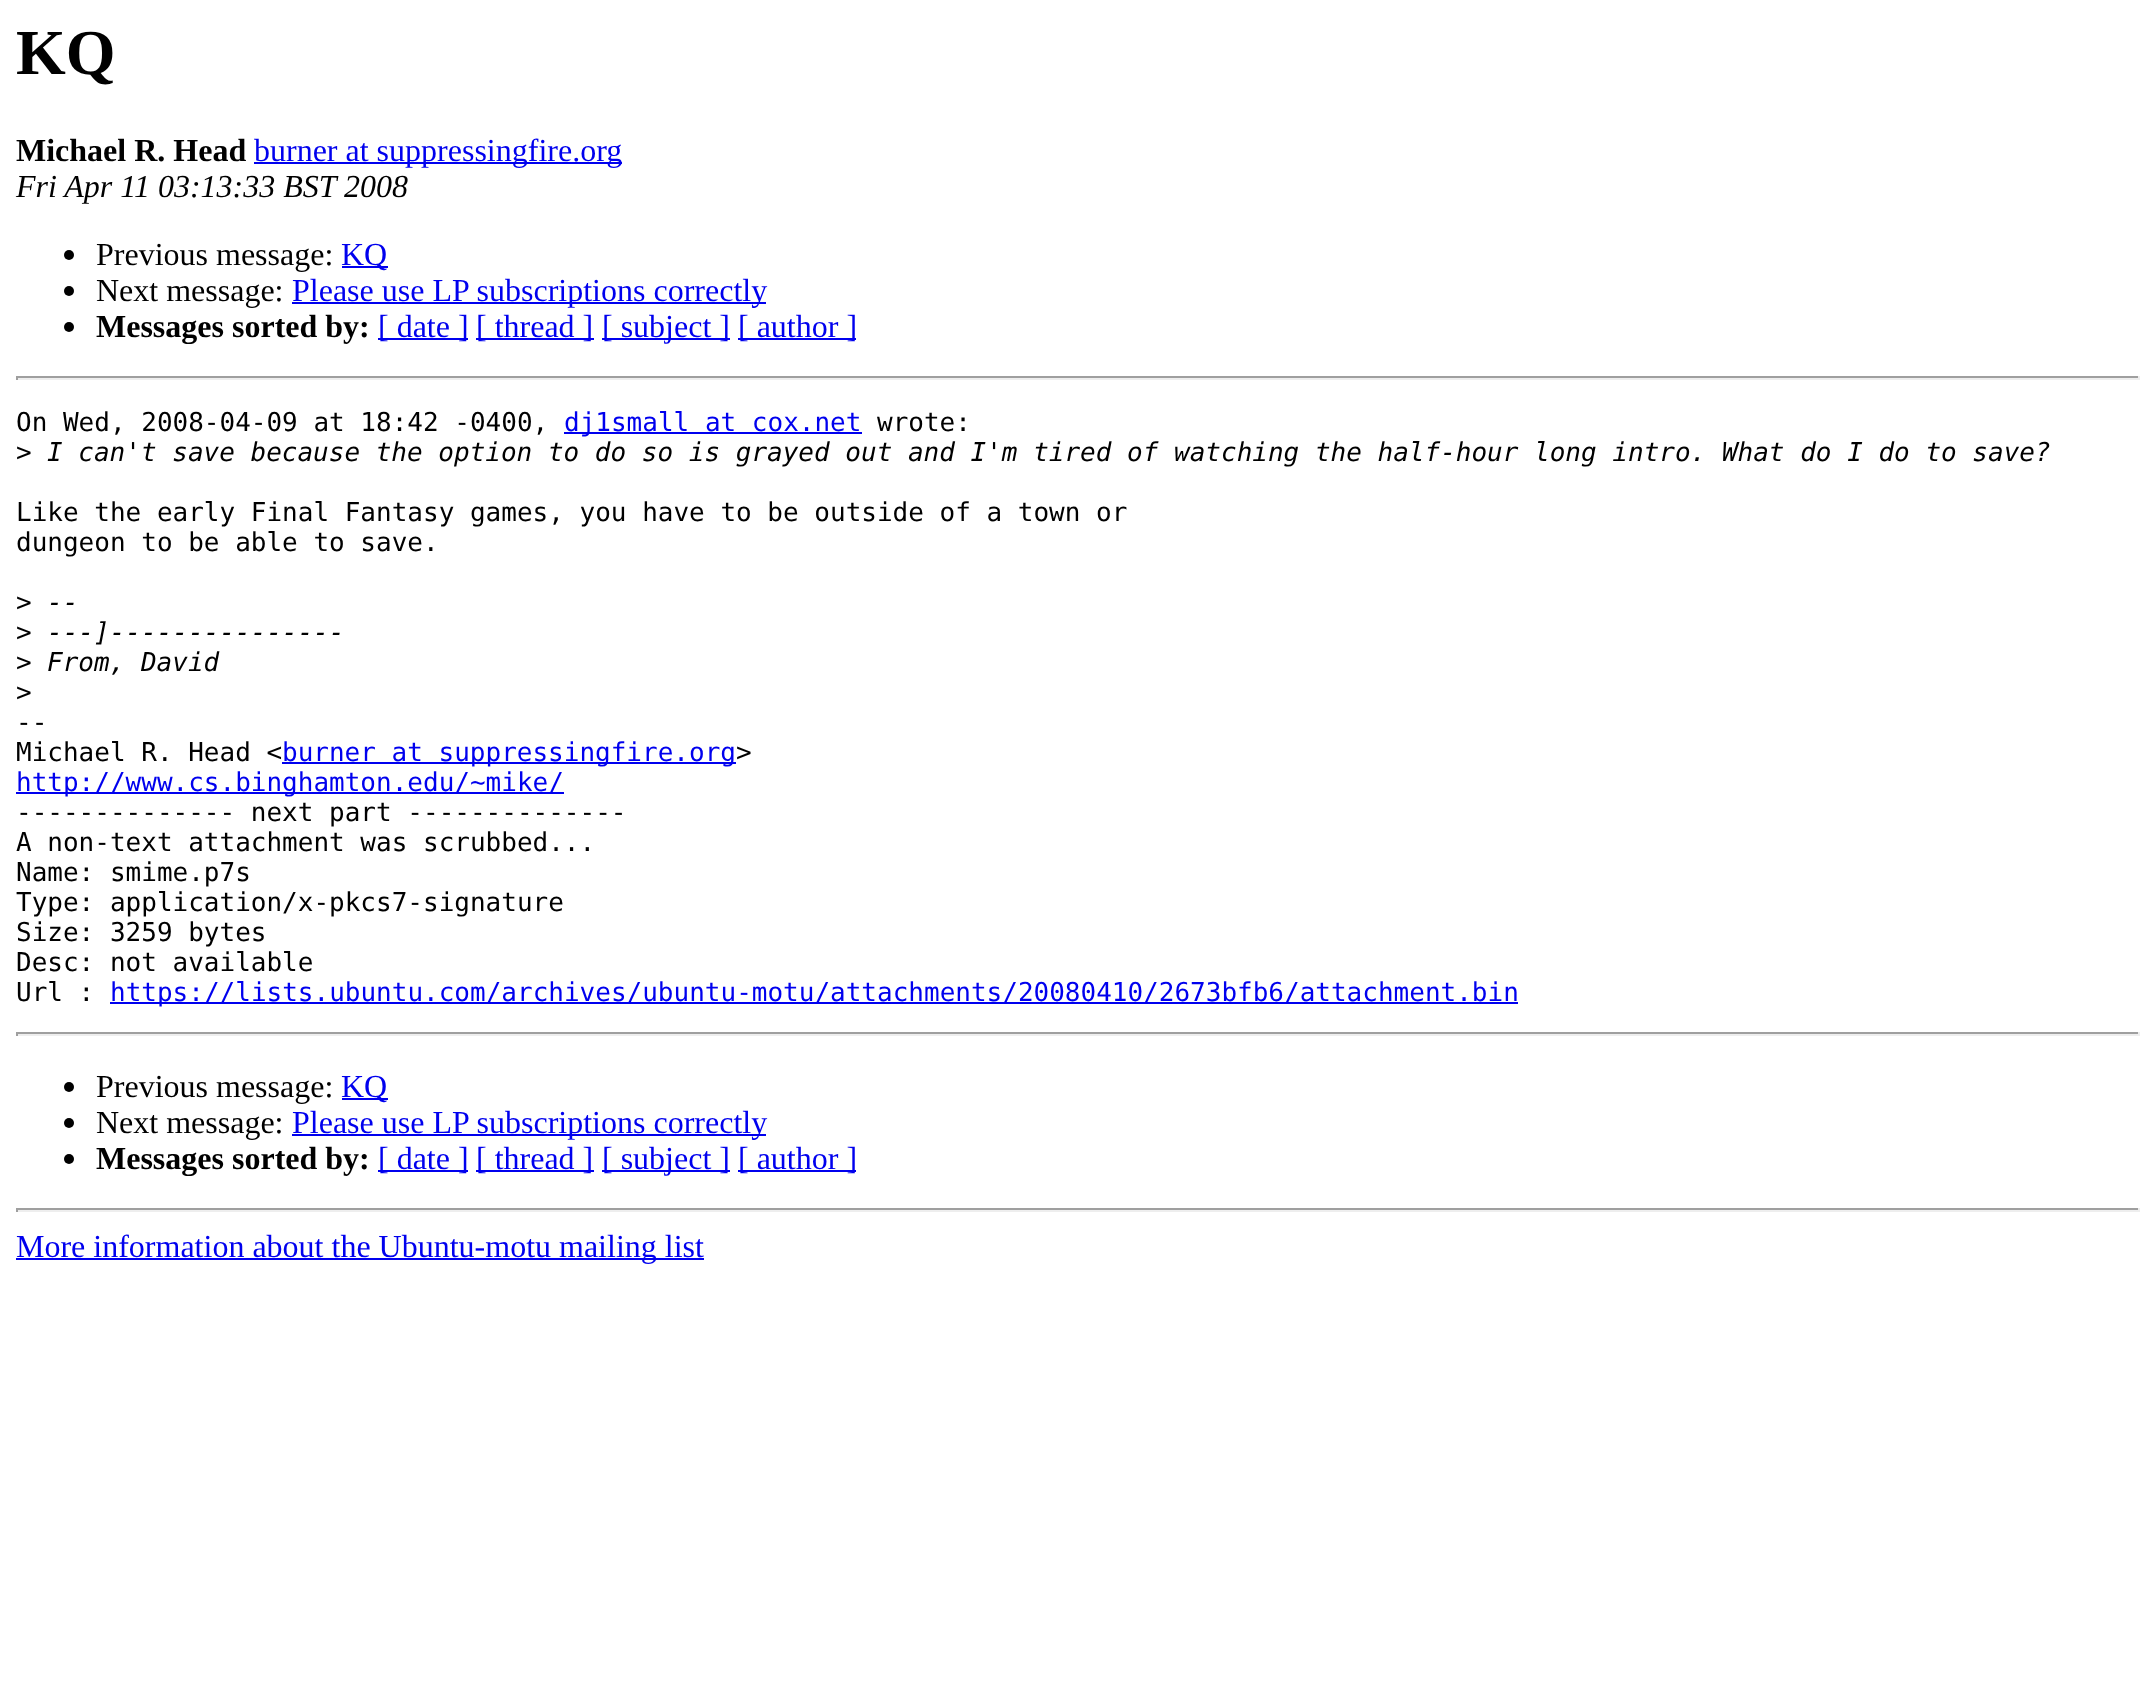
(async () => {
const canvas = document.querySelector("canvas")
canvas.width = 2155
canvas.height = 1708
const c = canvas.getContext("2d")
c.miterLimit = 4
c.fontKerning = "normal"
function T(s,x,y){c.fillText(s,x,y)}
function R(x,y,w,h){c.fillRect(x,y,w,h)}
c.fillStyle="#fff"
R(0,0,2155,1708)
c.font="bold 64px Liberation Serif"
c.fillStyle="#000"
T("KQ",16,74)
c.font="bold 32px Liberation Serif"
T("Michael R. Head",16,161)
c.fillStyle="#00e"
R(254,162,368,2)
c.font="32px Liberation Serif"
T("burner at suppressingfire.org",254,161)
c.font="italic 32px Liberation Serif"
c.fillStyle="#000"
T("Fri Apr 11 03:13:33 BST 2008",16,197)
c.beginPath()
c.arc(69,255,5,0,7)
c.fill()
c.font="32px Liberation Serif"
T("Previous message:",96,265)
c.fillStyle="#00e"
R(342,266,46,2)
T("KQ",341,265)
c.fillStyle="#000"
c.beginPath()
c.arc(69,291,5,0,7)
c.fill()
T("Next message:",96,301)
c.fillStyle="#00e"
R(292,302,474,2)
T("Please use LP subscriptions correctly",292,301)
c.fillStyle="#000"
c.beginPath()
c.arc(69,327,5,0,7)
c.fill()
c.font="bold 32px Liberation Serif"
T("Messages sorted by:",96,337)
c.fillStyle="#00e"
R(378,338,90,2)
c.font="32px Liberation Serif"
T("[ date ]",378,337)
R(476,338,118,2)
T("[ thread ]",476,337)
R(602,338,128,2)
T("[ subject ]",602,337)
R(738,338,118,2)
T("[ author ]",738,337)
c.fillStyle="#9f9f9f"
R(16,376,2124,2)
c.fillStyle="#eee"
R(2138,376,2,4)
R(16,378,2124,2)
c.fillStyle="#9f9f9f"
R(16,376,2,4)
c.font="26px DejaVu Sans Mono"
c.fillStyle="#000"
T("On Wed, 2008-04-09 at 18:42 -0400,",16,431)
c.fillStyle="#00e"
R(564,432,298,2)
T("dj1small at cox.net",564,431)
c.fillStyle="#000"
T("wrote:",877,431)
T(">",16,461)
c.font="italic 26px DejaVu Sans Mono"
T("I can't save because the option to do so is grayed out and I'm tired of watching the half-hour long intro. What do I do to save?",47,461)
c.font="26px DejaVu Sans Mono"
T("Like the early Final Fantasy games, you have to be outside of a town or",16,521)
T("dungeon to be able to save.",16,551)
T(">",16,611)
c.font="italic 26px DejaVu Sans Mono"
T("--",47,611)
c.font="26px DejaVu Sans Mono"
T(">",16,641)
c.font="italic 26px DejaVu Sans Mono"
T("---]---------------",47,641)
c.font="26px DejaVu Sans Mono"
T(">",16,671)
c.font="italic 26px DejaVu Sans Mono"
T("From, David",47,671)
c.font="26px DejaVu Sans Mono"
T(">",16,701)
T("--",16,731)
T("Michael R. Head <",16,761)
c.fillStyle="#00e"
R(282,762,454,2)
T("burner at suppressingfire.org",282,761)
c.fillStyle="#000"
T(">",736,761)
c.fillStyle="#00e"
R(16,792,548,2)
T("http://www.cs.binghamton.edu/~mike/",16,791)
c.fillStyle="#000"
T("-------------- next part --------------",16,821)
T("A non-text attachment was scrubbed...",16,851)
T("Name: smime.p7s",16,881)
T("Type: application/x-pkcs7-signature",16,911)
T("Size: 3259 bytes",16,941)
T("Desc: not available",16,971)
T("Url :",16,1001)
c.fillStyle="#00e"
R(110,1002,1408,2)
T("https://lists.ubuntu.com/archives/ubuntu-motu/attachments/20080410/2673bfb6/attachment.bin",110,1001)
c.fillStyle="#9f9f9f"
R(16,1032,2124,2)
c.fillStyle="#eee"
R(2138,1032,2,4)
R(16,1034,2124,2)
c.fillStyle="#9f9f9f"
R(16,1032,2,4)
c.fillStyle="#000"
c.beginPath()
c.arc(69,1087,5,0,7)
c.fill()
c.font="32px Liberation Serif"
T("Previous message:",96,1097)
c.fillStyle="#00e"
R(342,1098,46,2)
T("KQ",341,1097)
c.fillStyle="#000"
c.beginPath()
c.arc(69,1123,5,0,7)
c.fill()
T("Next message:",96,1133)
c.fillStyle="#00e"
R(292,1134,474,2)
T("Please use LP subscriptions correctly",292,1133)
c.fillStyle="#000"
c.beginPath()
c.arc(69,1159,5,0,7)
c.fill()
c.font="bold 32px Liberation Serif"
T("Messages sorted by:",96,1169)
c.fillStyle="#00e"
R(378,1170,90,2)
c.font="32px Liberation Serif"
T("[ date ]",378,1169)
R(476,1170,118,2)
T("[ thread ]",476,1169)
R(602,1170,128,2)
T("[ subject ]",602,1169)
R(738,1170,118,2)
T("[ author ]",738,1169)
c.fillStyle="#9f9f9f"
R(16,1208,2124,2)
c.fillStyle="#eee"
R(2138,1208,2,4)
R(16,1210,2124,2)
c.fillStyle="#9f9f9f"
R(16,1208,2,4)
c.fillStyle="#00e"
R(16,1258,688,2)
T("More information about the Ubuntu-motu mailing list",16,1257)
})()
